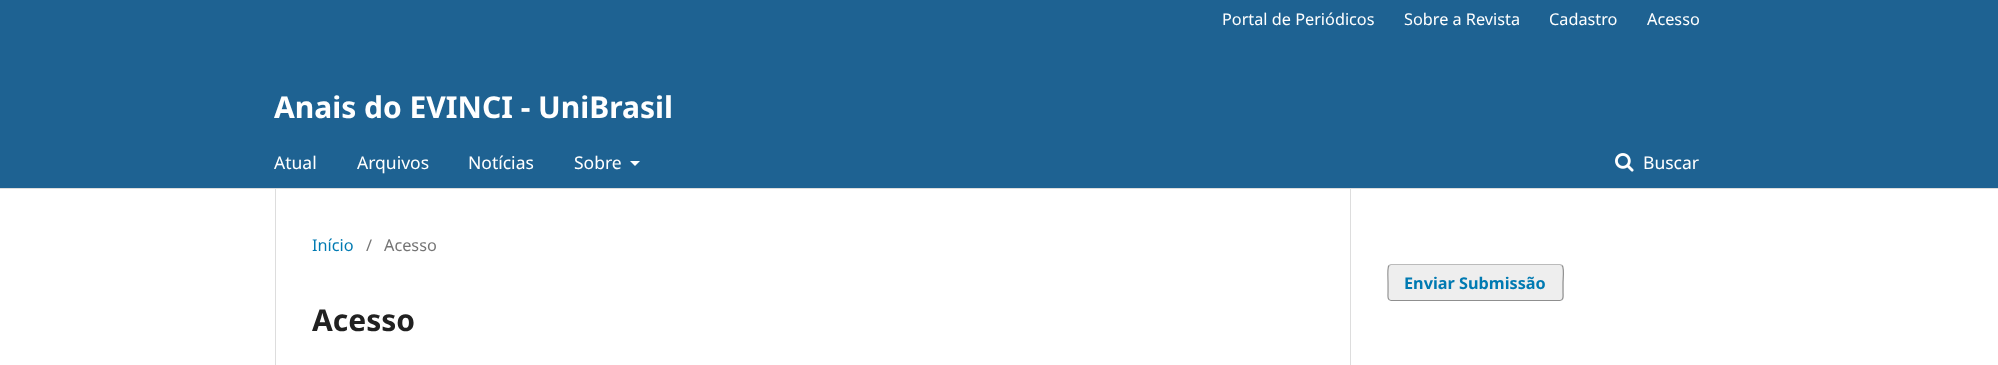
(async () => {
const canvas = document.querySelector("canvas")
canvas.width = 1998
canvas.height = 365
const c = canvas.getContext("2d")
c.miterLimit = 4
c.fontKerning = "normal"
function T(s,x,y){c.fillText(s,x,y)}
function R(x,y,w,h){c.fillRect(x,y,w,h)}
function Q(x,y,w,h,r){c.beginPath();c.roundRect(x,y,w,h,r);c.fill()}
async function I(src,x,y,w,h){const img=new Image();img.src=src;await img.decode();c.drawImage(img,x,y,w,h)}
let path
c.fillStyle="#fff"
R(0,0,1998,365)
c.fillStyle="#1e6292"
R(0,0,1998,188)
c.fillStyle="#ddd"
R(0,188,1998,1)
c.font="16.25px Noto Sans"
c.fillStyle="#fff"
T("Portal de Periódicos",1222,25)
T("Sobre a Revista",1404,25)
T("Cadastro",1549,25)
T("Acesso",1647,25)
c.font="bold 30px Noto Sans"
T("Anais do EVINCI - UniBrasil",274,118)
c.font="17.5px Noto Sans"
T("Atual",274,169)
T("Arquivos",357,169)
T("Notícias",468,169)
T("Sobre",574,169)
path = new Path2D("M630 161h10l-5 5z")
c.fill(path)
await I("1.png",1615,153,19,19)
T("Buscar",1643,169)
c.fillStyle="#ddd"
R(275,189,1,176)
c.font="16.25px Noto Sans"
c.fillStyle="#007ab2"
T("Início",312,251)
c.fillStyle="#757575"
T("/",366,251)
T("Acesso",384,251)
c.font="bold 30px Noto Sans"
c.fillStyle="#212121"
T("Acesso",312,331)
c.fillStyle="#ddd"
R(1350,189,1,176)
c.fillStyle="#eee"
Q(1388,264,176,37,4)
path = new Path2D("M1389 265.5l2-1h169l2 1")
c.strokeStyle="#bbb"
c.lineWidth=1.2
c.stroke(path)
path = new Path2D("M1562 265.5c2.5 2 1 14 1 17v10c0 2.5 1 8-3 8h-169c-4 0-3-5.5-3-8v-10c0-3-1-15 1-17")
c.strokeStyle="#00000066"
c.stroke(path)
c.font="bold 16.25px Noto Sans"
c.fillStyle="#007ab2"
T("Enviar Submissão",1404,289)
})()
